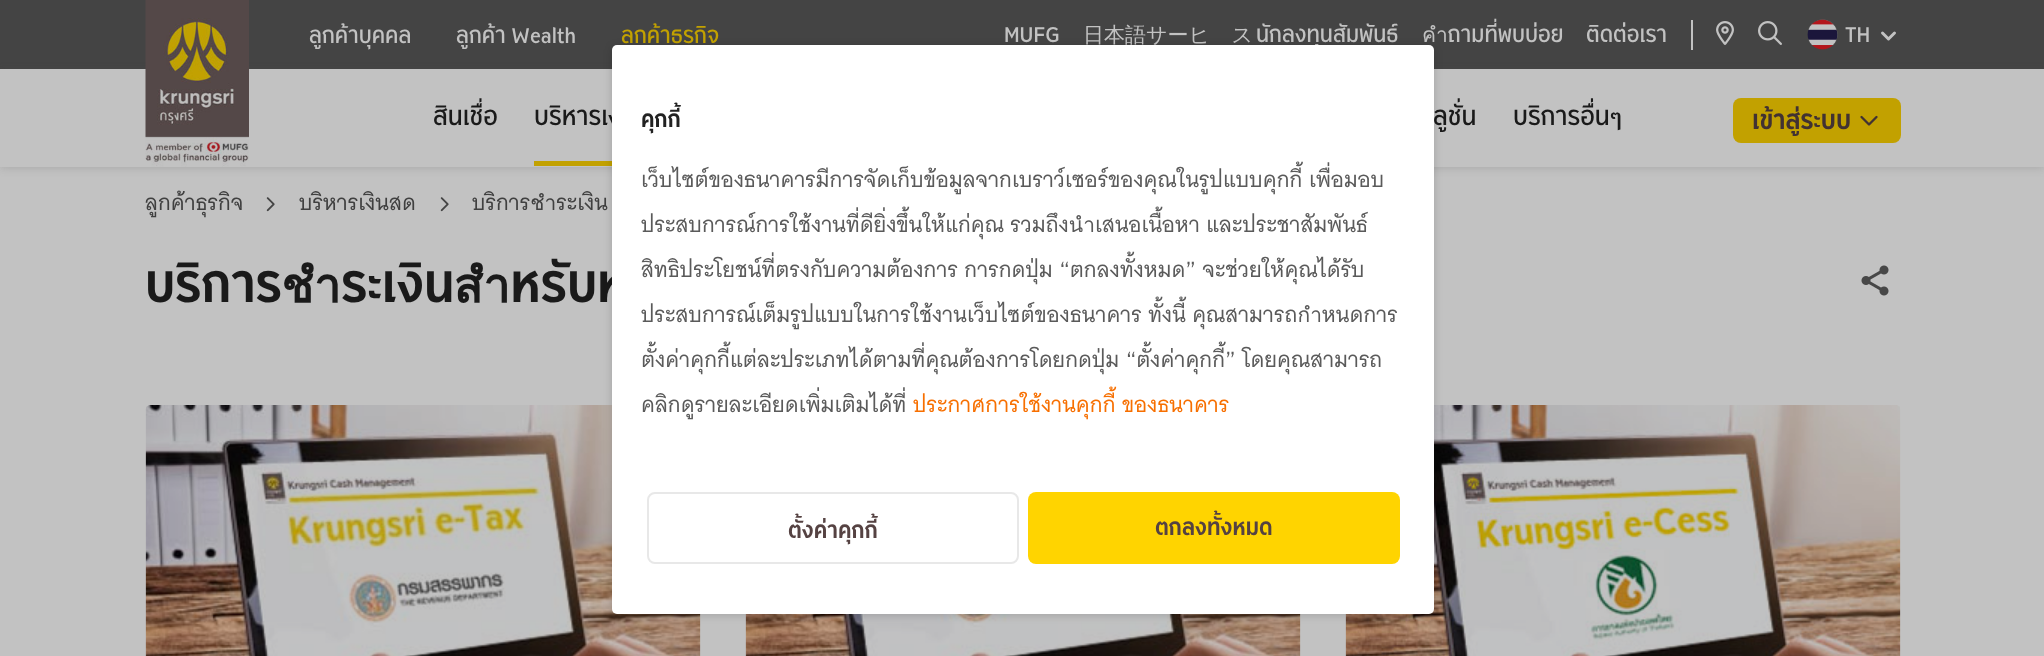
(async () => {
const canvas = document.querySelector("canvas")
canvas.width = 2044
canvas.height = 656
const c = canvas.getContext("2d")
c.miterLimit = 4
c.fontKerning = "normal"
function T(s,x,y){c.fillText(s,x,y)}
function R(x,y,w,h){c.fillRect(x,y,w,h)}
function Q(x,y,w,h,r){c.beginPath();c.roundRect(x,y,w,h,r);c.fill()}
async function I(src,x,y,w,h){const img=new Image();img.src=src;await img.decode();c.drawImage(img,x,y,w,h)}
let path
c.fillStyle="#c2c2c2"
R(0,0,2044,656)
c.fillStyle="#444"
R(0,0,2044,69)
c.fillStyle="#44444433"
c.filter="blur(4.5px)"
c.beginPath()
c.rect(0,71,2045,97)
c.fill()
c.filter="none"
c.fillStyle="#c2c2c2"
R(0,69,2044,98)
await I("1.png",145,0,104,167)
c.font="500 21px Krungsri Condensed"
T("ลูกค้าบุคคล",309,43)
T("ลูกค้า Wealth",456,43)
c.fillStyle="#c2a100"
T("ลูกค้าธุรกิจ",621,43)
c.fillStyle="#c2c2c2"
T("MUFG",1004,42)
c.font="500 21px WenQuanYi Zen Hei"
T("日本語サービス",1083,42)
c.font="500 21px Krungsri Condensed"
T("นักลงทุนสัมพันธ์",1256,42)
T("คำถามที่พบบ่อย",1422,42)
T("ติดต่อเรา",1586,42)
R(1691,20,2,30)
await I("2.png",1716,21,18,24)
await I("3.png",1758,21,24,24)
await I("4.png",1807,19,31,31)
T("TH",1845,42)
path = new Path2D("M1882.5 33l6 6l6-6")
c.strokeStyle="#c2c2c2"
c.lineWidth=3
c.lineCap="round"
c.lineJoin="round"
c.stroke(path)
c.font="500 24px Krungsri Condensed"
c.fillStyle="#1a1a1a"
T("สินเชื่อ",433,125)
T("บริหารเง",534,125)
c.fillStyle="#c2a100"
R(534,161,78,5)
c.fillStyle="#1a1a1a"
T("ลูชั่น",1433,125)
T("บริการอื่นๆ",1513,125)
c.fillStyle="#c2a100"
Q(1733,98,168,45,8)
c.font="bold 24px Krungsri Condensed"
c.fillStyle="#413232"
T("เข้าสู่ระบบ",1752,129)
await I("5.png",1860,115,18,11)
c.font="21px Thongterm"
c.fillStyle="#404040"
T("ลูกค้าธุรกิจ",145,210)
await I("6.png",266,197,9,15)
T("บริหารเงินสด",299,210)
await I("6.png",440,197,9,15)
T("บริการชำระเงิน",472,210)
c.font="bold 48px Krungsri Condensed"
c.fillStyle="#1a1a1a"
T("บริการชำระเงินสำหรับห",145,302)
await I("7.png",1861,265,28,31)
await I("8.png",145,405,556,251)
await I("9.png",745,614,556,42)
await I("10.png",1345,405,556,251)
c.fillStyle="#00000029"
c.filter="blur(4.5px)"
c.beginPath()
c.roundRect(612,47,822,568,5)
c.fill()
c.filter="none"
c.fillStyle="#fff"
Q(612,45,822,569,5)
c.font="bold 21px Krungsri Condensed"
c.fillStyle="#222"
T("คุกกี้",641,127)
c.font="21px Thongterm"
c.fillStyle="#5a5a5a"
T("เว็บไซต์ของธนาคารมีการจัดเก็บข้อมูลจากเบราว์เซอร์ของคุณในรูปแบบคุกกี้ เพื่อมอบ",641,187)
T("ประสบการณ์การใช้งานที่ดียิ่งขึ้นให้แก่คุณ รวมถึงนำเสนอเนื้อหา และประชาสัมพันธ์",641,232)
T("สิทธิประโยชน์ที่ตรงกับความต้องการ การกดปุ่ม “ตกลงทั้งหมด” จะช่วยให้คุณได้รับ",641,277)
T("ประสบการณ์เต็มรูปแบบในการใช้งานเว็บไซต์ของธนาคาร ทั้งนี้ คุณสามารถกำหนดการ",641,322)
T("ตั้งค่าคุกกี้แต่ละประเภทได้ตามที่คุณต้องการโดยกดปุ่ม “ตั้งค่าคุกกี้” โดยคุณสามารถ",641,367)
T("คลิกดูรายละเอียดเพิ่มเติมได้ที่",641,412)
c.fillStyle="#f76f00"
T("ประกาศการใช้งานคุกกี้ ของธนาคาร",913,412)
c.beginPath()
c.roundRect(648,493,370,70,7)
c.strokeStyle="#e8e8e8"
c.lineWidth=2
c.lineJoin="miter"
c.stroke()
c.font="bold 21px Krungsri Condensed"
c.fillStyle="#554242"
T("ตั้งค่าคุกกี้",788,538)
c.fillStyle="#ffd400"
Q(1028,492,372,72,8)
c.fillStyle="#554242"
T("ตกลงทั้งหมด",1155,535)
})()
